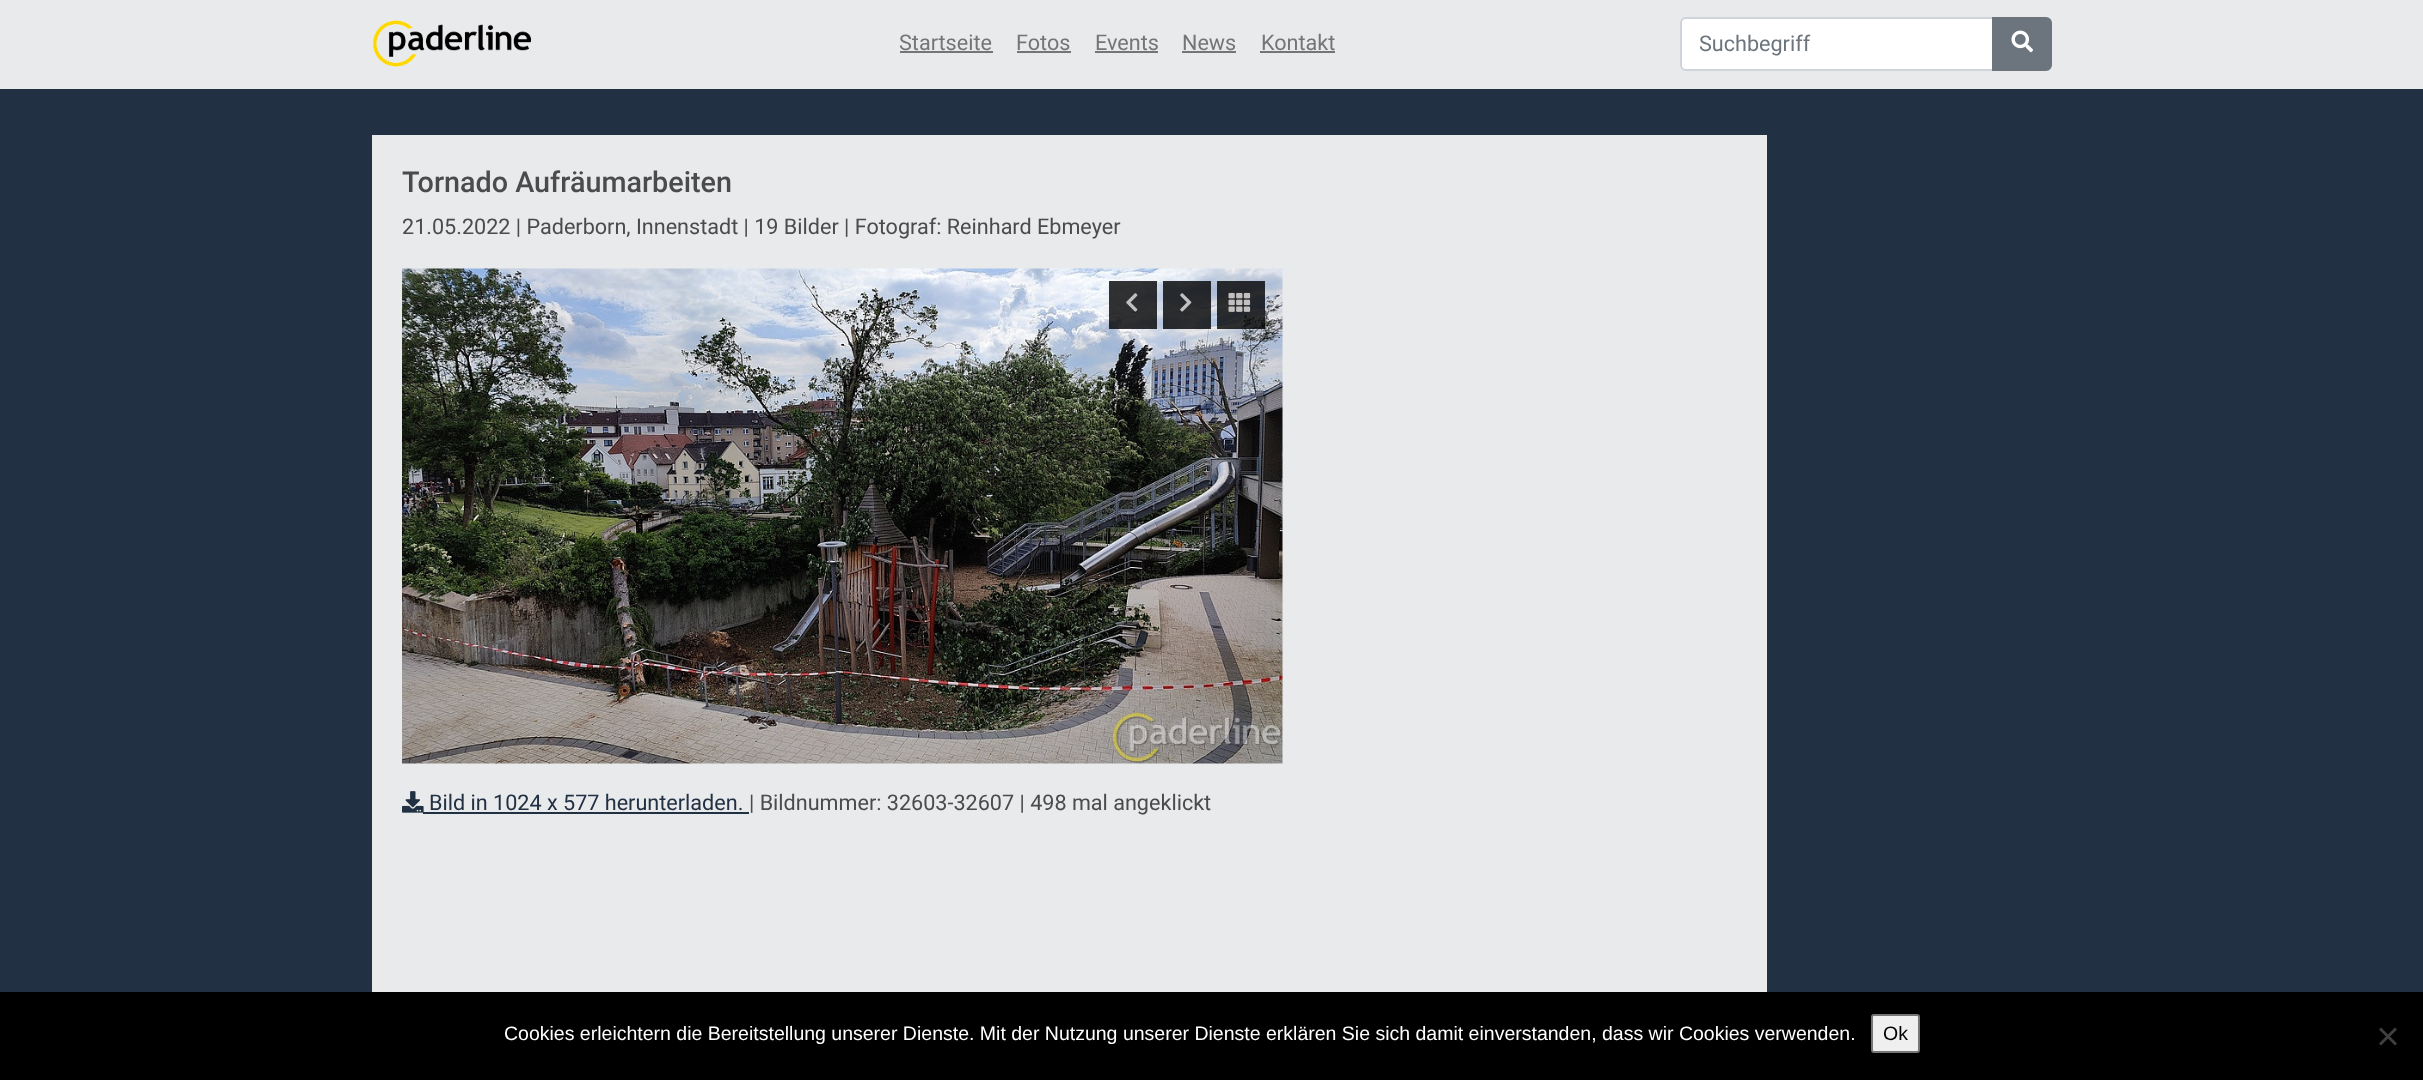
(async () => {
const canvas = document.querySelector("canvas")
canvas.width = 2423
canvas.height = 1080
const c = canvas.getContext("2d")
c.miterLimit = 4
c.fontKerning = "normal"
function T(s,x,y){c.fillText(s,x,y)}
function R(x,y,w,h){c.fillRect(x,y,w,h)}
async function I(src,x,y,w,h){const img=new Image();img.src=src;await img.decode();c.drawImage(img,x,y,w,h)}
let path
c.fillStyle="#213042"
R(0,0,2423,1080)
c.fillStyle="#e9eaec"
R(0,0,2423,89)
await I("1.png",372,20,159,47)
c.font="21.6px Roboto"
c.fillStyle="#757576"
T("Startseite",899,50)
R(900,51,93,2)
T("Fotos",1016,50)
R(1017,51,54,2)
T("Events",1095,50)
R(1095,51,63,2)
T("News",1182,50)
R(1182,51,54,2)
T("Kontakt",1261,50)
R(1260,51,75,2)
c.fillStyle="#fff"
c.beginPath()
c.roundRect(1681,18,312,52,[5,0,0,5])
c.fill()
c.strokeStyle="#ced4da"
c.lineWidth=2
c.stroke()
c.fillStyle="#6c757d"
T("Suchbegriff",1699,51)
c.beginPath()
c.roundRect(1993,18,58,52,[0,5,5,0])
c.fill()
c.strokeStyle="#6c757d"
c.stroke()
await I("2.png",2011,30,22,23)
c.fillStyle="#e9eaec"
R(372,135,1395,857)
c.font="500 28.75px Roboto"
c.fillStyle="#4b4b4d"
T("Tornado Aufräumarbeiten",402,192)
c.font="21.6px Roboto"
T("21.05.2022 | Paderborn, Innenstadt | 19 Bilder | Fotograf: Reinhard Ebmeyer",402,234)
await I("3.png",402,268,881,496)
c.fillStyle="#000000cc"
R(1109,281,48,48)
await I("4.png",1126,293,12,19)
R(1163,281,48,48)
await I("5.png",1180,293,12,19)
R(1217,281,48,48)
await I("6.png",1228,292,23,20)
await I("7.png",402,791,22,22)
c.fillStyle="#213042"
T("Bild in 1024 x 577 herunterladen.",429,810)
R(423,812,326,2)
c.fillStyle="#4b4b4d"
T("| Bildnummer: 32603-32607 | 498 mal angeklickt",749,810)
c.fillStyle="#000"
R(0,992,2423,88)
c.font="19.5px Liberation Sans"
c.fillStyle="#fff"
T("Cookies erleichtern die Bereitstellung unserer Dienste. Mit der Nutzung unserer Dienste erklären Sie sich damit einverstanden, dass wir Cookies verwenden.",504,1040)
c.fillStyle="#efefef"
c.beginPath()
c.roundRect(1872,1015,47,37,2)
c.fill()
c.strokeStyle="#767676"
c.stroke()
c.fillStyle="#000"
T("Ok",1883,1040)
c.fillStyle="#404040"
path = new Path2D("M2395 1027.5l2 2l-16 16l-2-2z")
c.fill(path)
path = new Path2D("M2379 1029.5l2-2l16 16l-2 2z")
c.fill(path)
})()
